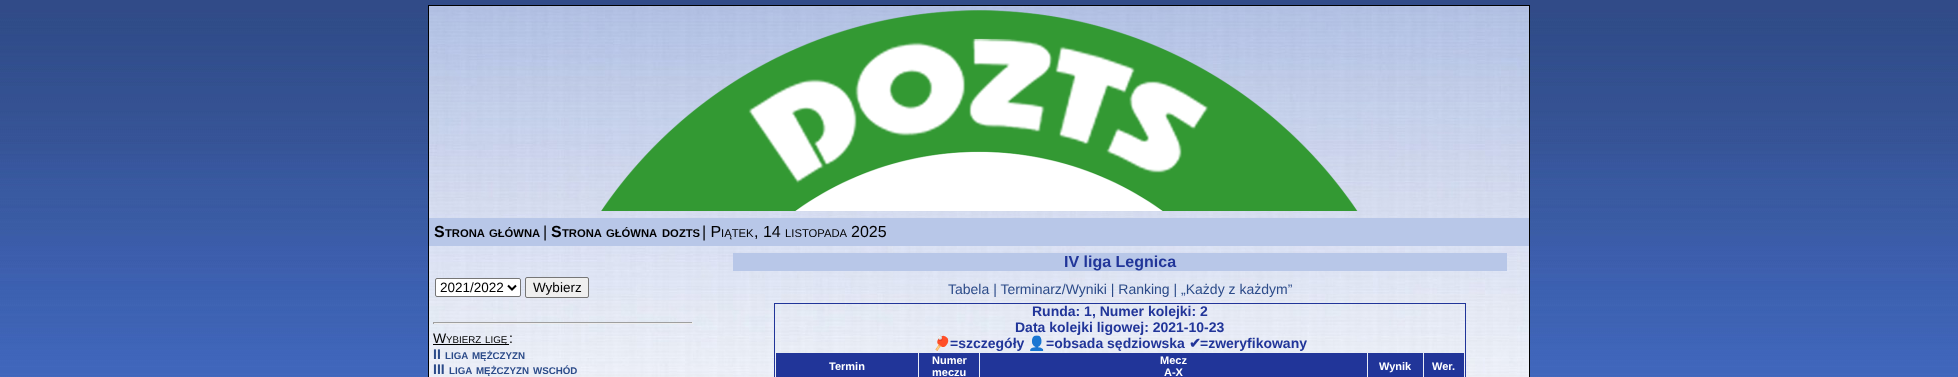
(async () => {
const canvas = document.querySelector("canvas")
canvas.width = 1958
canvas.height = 377
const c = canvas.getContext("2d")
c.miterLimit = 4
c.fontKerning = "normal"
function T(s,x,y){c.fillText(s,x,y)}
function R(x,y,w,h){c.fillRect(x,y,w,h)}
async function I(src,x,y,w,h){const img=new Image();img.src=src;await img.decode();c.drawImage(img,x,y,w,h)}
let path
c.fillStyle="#fff"
R(0,0,1958,377)
await I("1.png",0,0,1958,377)
await I("2.png",429,6,1100,371)
c.strokeStyle="#000"
c.strokeRect(428.5,5.5,1101,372)
await I("3.png",601,10,757,201)
c.fillStyle="#b8c7e8"
R(429,218,1100,28)
c.font="bold 16px Liberation Sans"
c.fillStyle="#000"
T("S",434,237)
c.font="bold 11.25px Liberation Sans"
T("TRONA",445,237)
T("GŁÓWNA",489,237)
c.font="16px Liberation Sans"
T("|",543,237)
c.font="bold 16px Liberation Sans"
T("S",551,237)
c.font="bold 11.25px Liberation Sans"
T("TRONA",562,237)
T("GŁÓWNA",606,237)
T("DOZTS",662,237)
c.font="16px Liberation Sans"
T("| P",702,237)
c.font="11.25px Liberation Sans"
T("IĄTEK",721,237)
c.font="16px Liberation Sans"
T(", 14",754,237)
c.font="11.25px Liberation Sans"
T("LISTOPADA",785,237)
c.font="16px Liberation Sans"
T("2025",851,237)
c.fillStyle="#fff"
c.beginPath()
c.roundRect(435.5,278.5,85,18,1.5)
c.fill()
c.strokeStyle="#767676"
c.stroke()
path = new Path2D("M508 285.5l4 4l4-4")
c.strokeStyle="#000"
c.lineWidth=2
c.stroke(path)
c.font="13.5px Liberation Sans"
c.fillStyle="#000"
T("2021/2022",440,292)
c.fillStyle="#efefef"
c.beginPath()
c.roundRect(525.5,277.5,63,20,1.5)
c.fill()
c.strokeStyle="#767676"
c.lineWidth=1
c.stroke()
c.fillStyle="#000"
T("Wybierz",533,292)
c.fillStyle="#9f9f9f"
R(433,322,260,1)
c.fillStyle="#eee"
R(692,322,1,2)
R(433,323,260,1)
c.fillStyle="#9f9f9f"
R(433,322,1,2)
c.font="14px Liberation Sans"
c.fillStyle="#000"
T("W",433,343)
c.font="9.75px Liberation Sans"
T("YBIERZ",446,343)
R(433,344,76,1)
T("LIGĘ",485,343)
c.font="14px Liberation Sans"
T(":",509,343)
c.font="bold 14px Liberation Sans"
c.fillStyle="#2c4b89"
T("II",433,359)
c.font="bold 9.75px Liberation Sans"
T("LIGA",445,359)
T("MĘŻCZYZN",472,359)
c.font="bold 14px Liberation Sans"
T("III",433,374)
c.font="bold 9.75px Liberation Sans"
T("LIGA",449,374)
T("MĘŻCZYZN",476,374)
T("WSCHÓD",533,374)
c.fillStyle="#b8c7e8"
R(733,253,774,18)
c.font="bold 16px Liberation Sans"
c.fillStyle="#213599"
T("IV liga Legnica",1064,267)
c.font="14px Liberation Sans"
c.fillStyle="#2c4b89"
T("Tabela | Terminarz/Wyniki | Ranking | „Każdy z każdym”",948,294)
c.strokeStyle="#213599"
c.strokeRect(774.5,303.5,691,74)
c.font="bold 14px Liberation Sans"
c.fillStyle="#213599"
T("Runda: 1, Numer kolejki: 2",1032,316)
T("Data kolejki ligowej: 2021-10-23",1015,332)
c.font="bold 14px Noto Color Emoji"
T("🏓",933,348)
c.font="bold 14px Liberation Sans"
T("=szczegóły",950,348)
c.font="bold 14px Noto Color Emoji"
T("👤",1028,348)
c.font="bold 14px Liberation Sans"
T("=obsada sędziowska",1046,348)
c.font="bold 14px DejaVu Sans"
T("✔",1189,348)
c.font="bold 14px Liberation Sans"
T("=zweryfikowany",1200,348)
R(776,353,142,24)
c.font="bold 11px Liberation Sans"
c.fillStyle="#fff"
T("Termin",829,370)
c.fillStyle="#213599"
R(919,353,60,24)
c.fillStyle="#fff"
T("Numer",932,364)
T("meczu",932,376)
c.fillStyle="#213599"
R(980,353,387,24)
c.fillStyle="#fff"
T("Mecz",1160,364)
T("A-X",1164,376)
c.fillStyle="#213599"
R(1368,353,55,24)
c.fillStyle="#fff"
T("Wynik",1379,370)
c.fillStyle="#213599"
R(1424,353,40,24)
c.fillStyle="#fff"
T("Wer.",1432,370)
})()
